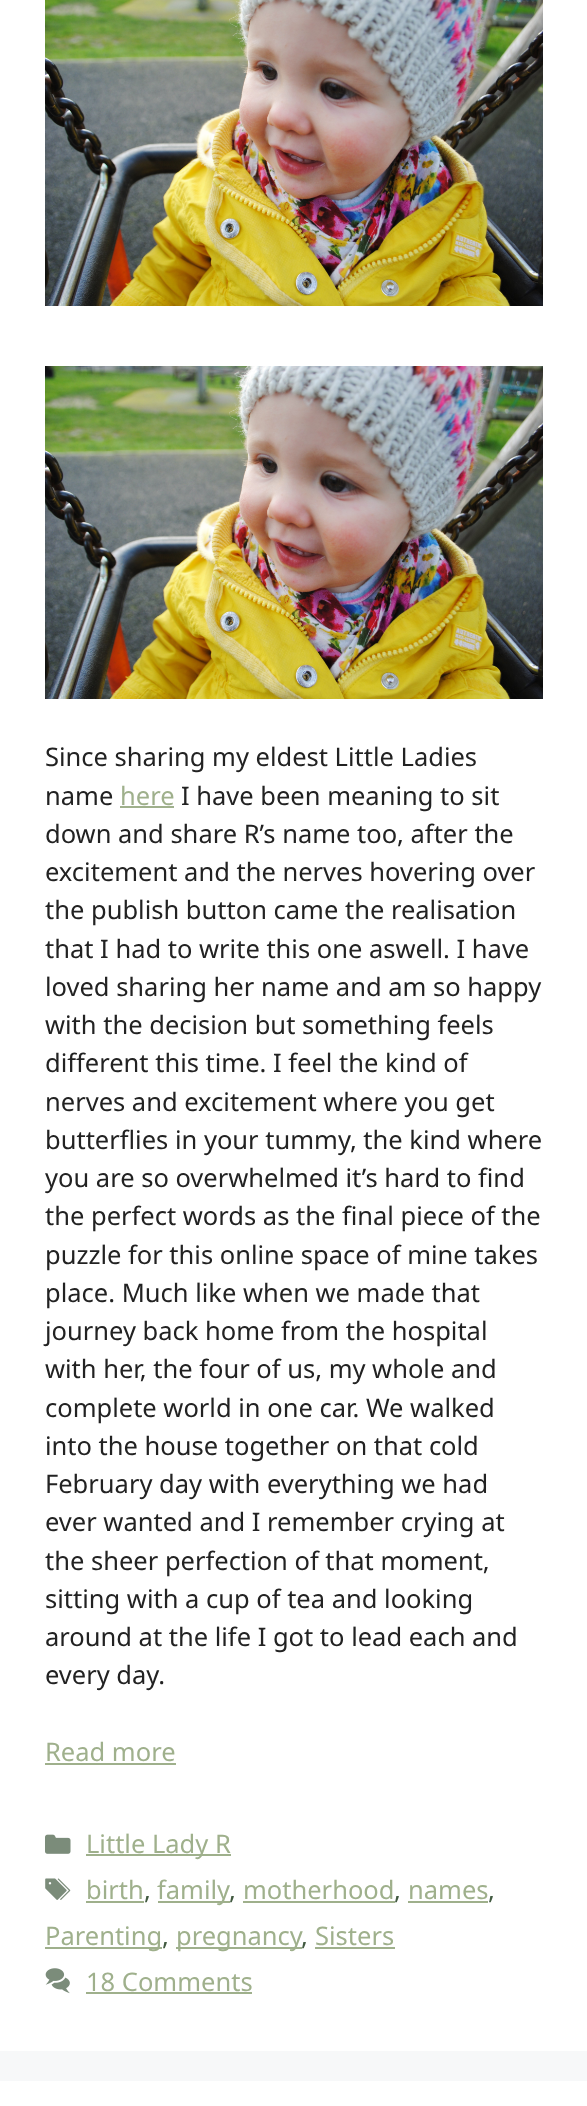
(async () => {
const canvas = document.querySelector("canvas")
canvas.width = 587
canvas.height = 2106
const c = canvas.getContext("2d")
c.miterLimit = 4
c.fontKerning = "normal"
function T(s,x,y){c.fillText(s,x,y)}
function R(x,y,w,h){c.fillRect(x,y,w,h)}
async function I(src,x,y,w,h){const img=new Image();img.src=src;await img.decode();c.drawImage(img,x,y,w,h)}
c.fillStyle="#f7f8f9"
R(0,0,587,2106)
c.fillStyle="#fff"
R(0,0,587,2051)
await I("1.png",45,0,498,306)
await I("2.png",45,366,498,333)
c.font="25.5px Noto Sans"
c.fillStyle="#222"
T("Since sharing my eldest Little Ladies",45,766)
T("name",45,805)
c.fillStyle="#9fb08c"
T("here",120,805)
R(120,806,54,2)
c.fillStyle="#222"
T("I have been meaning to sit",181,805)
T("down and share R’s name too, after the",45,843)
T("excitement and the nerves hovering over",45,881)
T("the publish button came the realisation",45,919)
T("that I had to write this one aswell. I have",45,958)
T("loved sharing her name and am so happy",45,996)
T("with the decision but something feels",45,1034)
T("different this time. I feel the kind of",45,1072)
T("nerves and excitement where you get",45,1111)
T("butterflies in your tummy, the kind where",45,1149)
T("you are so overwhelmed it’s hard to find",45,1187)
T("the perfect words as the final piece of the",45,1225)
T("puzzle for this online space of mine takes",45,1264)
T("place. Much like when we made that",45,1302)
T("journey back home from the hospital",45,1340)
T("with her, the four of us, my whole and",45,1378)
T("complete world in one car. We walked",45,1417)
T("into the house together on that cold",45,1455)
T("February day with everything we had",45,1493)
T("ever wanted and I remember crying at",45,1531)
T("the sheer perfection of that moment,",45,1570)
T("sitting with a cup of tea and looking",45,1608)
T("around at the life I got to lead each and",45,1646)
T("every day.",45,1684)
c.fillStyle="#9fb08c"
T("Read more",45,1761)
R(45,1763,131,2)
await I("3.png",45,1834,26,20)
R(86,1854,145,2)
T("Little Lady R",86,1853)
await I("4.png",45,1878,26,22)
T("birth",86,1899)
R(86,1901,58,2)
c.fillStyle="#425a41"
T(",",144,1899)
c.fillStyle="#9fb08c"
R(158,1901,72,2)
T("family",157,1899)
c.fillStyle="#425a41"
T(",",229,1899)
c.fillStyle="#9fb08c"
T("motherhood",243,1899)
R(243,1901,152,2)
c.fillStyle="#425a41"
T(",",394,1899)
c.fillStyle="#9fb08c"
T("names",408,1899)
R(408,1901,80,2)
c.fillStyle="#425a41"
T(",",488,1899)
c.fillStyle="#9fb08c"
R(45,1947,117,2)
T("Parenting",45,1945)
c.fillStyle="#425a41"
T(",",162,1945)
c.fillStyle="#9fb08c"
R(176,1947,126,2)
T("pregnancy",176,1945)
c.fillStyle="#425a41"
T(",",301,1945)
c.fillStyle="#9fb08c"
T("Sisters",315,1945)
R(315,1947,80,2)
await I("5.png",45,1968,25,26)
T("18 Comments",86,1991)
R(86,1992,166,2)
c.fillStyle="#fff"
R(0,2081,587,25)
})()
